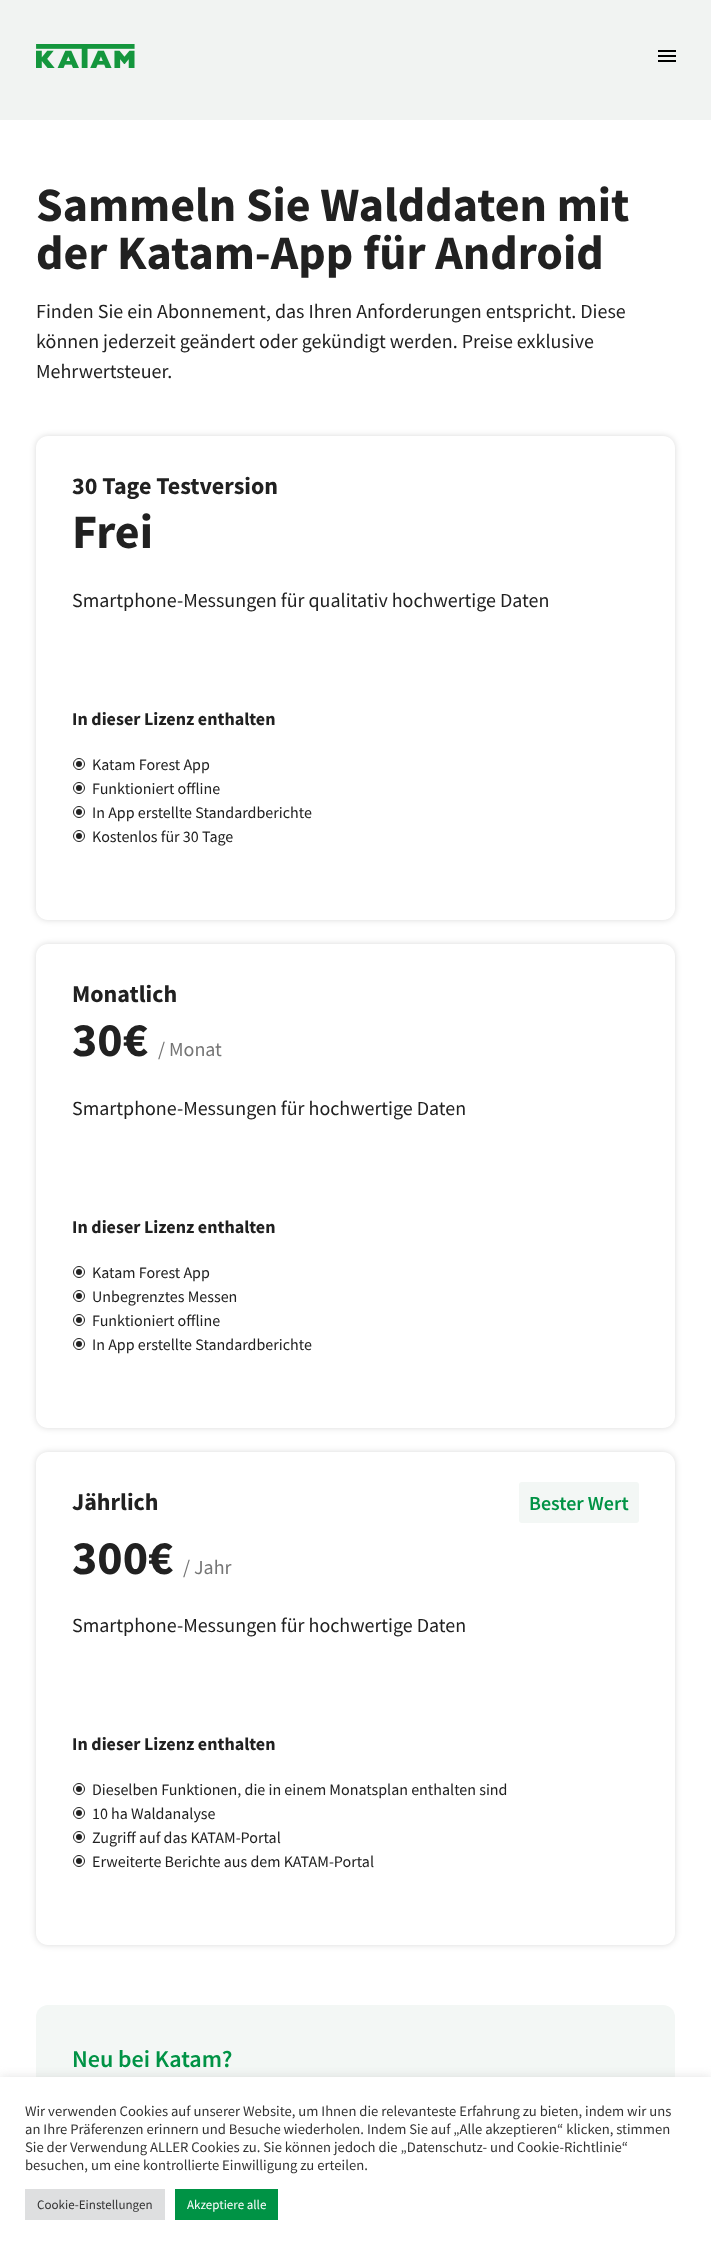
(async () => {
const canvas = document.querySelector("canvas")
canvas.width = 711
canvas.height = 2250
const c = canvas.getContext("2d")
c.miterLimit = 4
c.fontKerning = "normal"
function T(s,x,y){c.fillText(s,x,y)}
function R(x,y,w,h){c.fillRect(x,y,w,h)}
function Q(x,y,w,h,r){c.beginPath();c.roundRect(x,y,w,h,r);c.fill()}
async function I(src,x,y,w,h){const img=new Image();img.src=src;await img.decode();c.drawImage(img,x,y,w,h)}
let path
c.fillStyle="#fff"
R(0,0,711,2250)
c.fillStyle="#f1f3f2"
R(0,0,711,120)
await I("1.png",36,44,99,24)
await I("2.png",658,50,18,12)
c.font="bold 48px Source Sans Pro"
c.fillStyle="#212121"
T("Sammeln Sie Walddaten mit",36,221)
T("der Katam-App für Android",36,269)
c.font="20px Source Sans Pro"
T("Finden Sie ein Abonnement, das Ihren Anforderungen entspricht. Diese",36,318)
T("können jederzeit geändert oder gekündigt werden. Preise exklusive",36,348)
T("Mehrwertsteuer.",36,378)
c.save()
path = new Path2D("M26 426h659v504h-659zm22 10h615c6.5 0 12 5.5 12 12v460c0 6.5-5.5 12-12 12h-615c-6.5 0-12-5.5-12-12v-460c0-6.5 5.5-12 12-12z")
c.clip(path,"evenodd")
c.fillStyle="#00000026"
c.filter="blur(3px)"
c.beginPath()
c.roundRect(36,436,639,484,12)
c.fill()
c.filter="none"
c.restore()
c.font="bold 24px Source Sans Pro"
T("30 Tage Testversion",72,494)
c.font="bold 48px Source Sans Pro"
T("Frei",72,548)
c.font="20px Source Sans Pro"
T("Smartphone-Messungen für qualitativ hochwertige Daten",72,607)
c.font="bold 18px Source Sans Pro"
T("In dieser Lizenz enthalten",72,725)
await I("3.png",73,758,12,12)
c.font="16px Source Sans Pro"
T("Katam Forest App",92,770)
await I("3.png",73,782,12,12)
T("Funktioniert offline",92,794)
await I("3.png",73,806,12,12)
T("In App erstellte Standardberichte",92,818)
await I("3.png",73,830,12,12)
T("Kostenlos für 30 Tage",92,842)
c.save()
path = new Path2D("M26 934h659v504h-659zm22 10h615c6.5 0 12 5.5 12 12v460c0 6.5-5.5 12-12 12h-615c-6.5 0-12-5.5-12-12v-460c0-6.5 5.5-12 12-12z")
c.clip(path,"evenodd")
c.fillStyle="#00000026"
c.filter="blur(3px)"
c.beginPath()
c.roundRect(36,944,639,484,12)
c.fill()
c.filter="none"
c.restore()
c.font="bold 24px Source Sans Pro"
T("Monatlich",72,1002)
c.font="bold 48px Source Sans Pro"
T("30€",72,1056)
c.font="20px Source Sans Pro"
c.fillStyle="#757575"
T("/ Monat",158,1056)
c.fillStyle="#212121"
T("Smartphone-Messungen für hochwertige Daten",72,1115)
c.font="bold 18px Source Sans Pro"
T("In dieser Lizenz enthalten",72,1233)
await I("3.png",73,1266,12,12)
c.font="16px Source Sans Pro"
T("Katam Forest App",92,1278)
await I("3.png",73,1290,12,12)
T("Unbegrenztes Messen",92,1302)
await I("3.png",73,1314,12,12)
T("Funktioniert offline",92,1326)
await I("3.png",73,1338,12,12)
T("In App erstellte Standardberichte",92,1350)
c.save()
path = new Path2D("M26 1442h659v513h-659zm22 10h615c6.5 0 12 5.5 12 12v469c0 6.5-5.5 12-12 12h-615c-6.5 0-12-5.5-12-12v-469c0-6.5 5.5-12 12-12z")
c.clip(path,"evenodd")
c.fillStyle="#00000026"
c.filter="blur(3px)"
c.beginPath()
c.roundRect(36,1452,639,493,12)
c.fill()
c.filter="none"
c.restore()
c.font="bold 24px Source Sans Pro"
T("Jährlich",72,1510)
c.fillStyle="#f3f7f5"
Q(519,1482,120,41,3)
c.font="600 20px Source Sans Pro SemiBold"
c.fillStyle="#009345"
T("Bester Wert",529,1510)
c.font="bold 48px Source Sans Pro"
c.fillStyle="#212121"
T("300€",72,1574)
c.font="20px Source Sans Pro"
c.fillStyle="#757575"
T("/ Jahr",183,1574)
c.fillStyle="#212121"
T("Smartphone-Messungen für hochwertige Daten",72,1632)
c.font="bold 18px Source Sans Pro"
T("In dieser Lizenz enthalten",72,1750)
await I("3.png",73,1783,12,12)
c.font="16px Source Sans Pro"
T("Dieselben Funktionen, die in einem Monatsplan enthalten sind",92,1795)
await I("3.png",73,1807,12,12)
T("10 ha Waldanalyse",92,1819)
await I("3.png",73,1831,12,12)
T("Zugriff auf das KATAM-Portal",92,1843)
await I("3.png",73,1855,12,12)
T("Erweiterte Berichte aus dem KATAM-Portal",92,1867)
c.fillStyle="#f3f7f5"
Q(36,2005,639,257,12)
c.font="600 24px Source Sans Pro SemiBold"
c.fillStyle="#009345"
T("Neu bei Katam?",72,2067)
c.fillStyle="#acabab4d"
c.filter="blur(5px)"
c.beginPath()
c.rect(0,2076,711,173)
c.fill()
c.filter="none"
c.fillStyle="#fff"
R(0,2077,711,173)
c.font="14.65px Source Sans Pro"
c.fillStyle="#333"
T("Wir verwenden Cookies auf unserer Website, um Ihnen die relevanteste Erfahrung zu bieten, indem wir uns",25,2116)
T("an Ihre Präferenzen erinnern und Besuche wiederholen. Indem Sie auf „Alle akzeptieren“ klicken, stimmen",25,2134)
T("Sie der Verwendung ALLER Cookies zu. Sie können jedoch die „Datenschutz- und Cookie-Richtlinie“",25,2152)
T("besuchen, um eine kontrollierte Einwilligung zu erteilen.",25,2170)
c.fillStyle="#dedfe0"
R(25,2189,140,31)
c.font="13px Source Sans Pro"
c.fillStyle="#333"
T("Cookie-Einstellungen",37,2209)
c.fillStyle="#009345"
R(175,2189,103,31)
c.fillStyle="#fff"
T("Akzeptiere alle",187,2209)
})()
